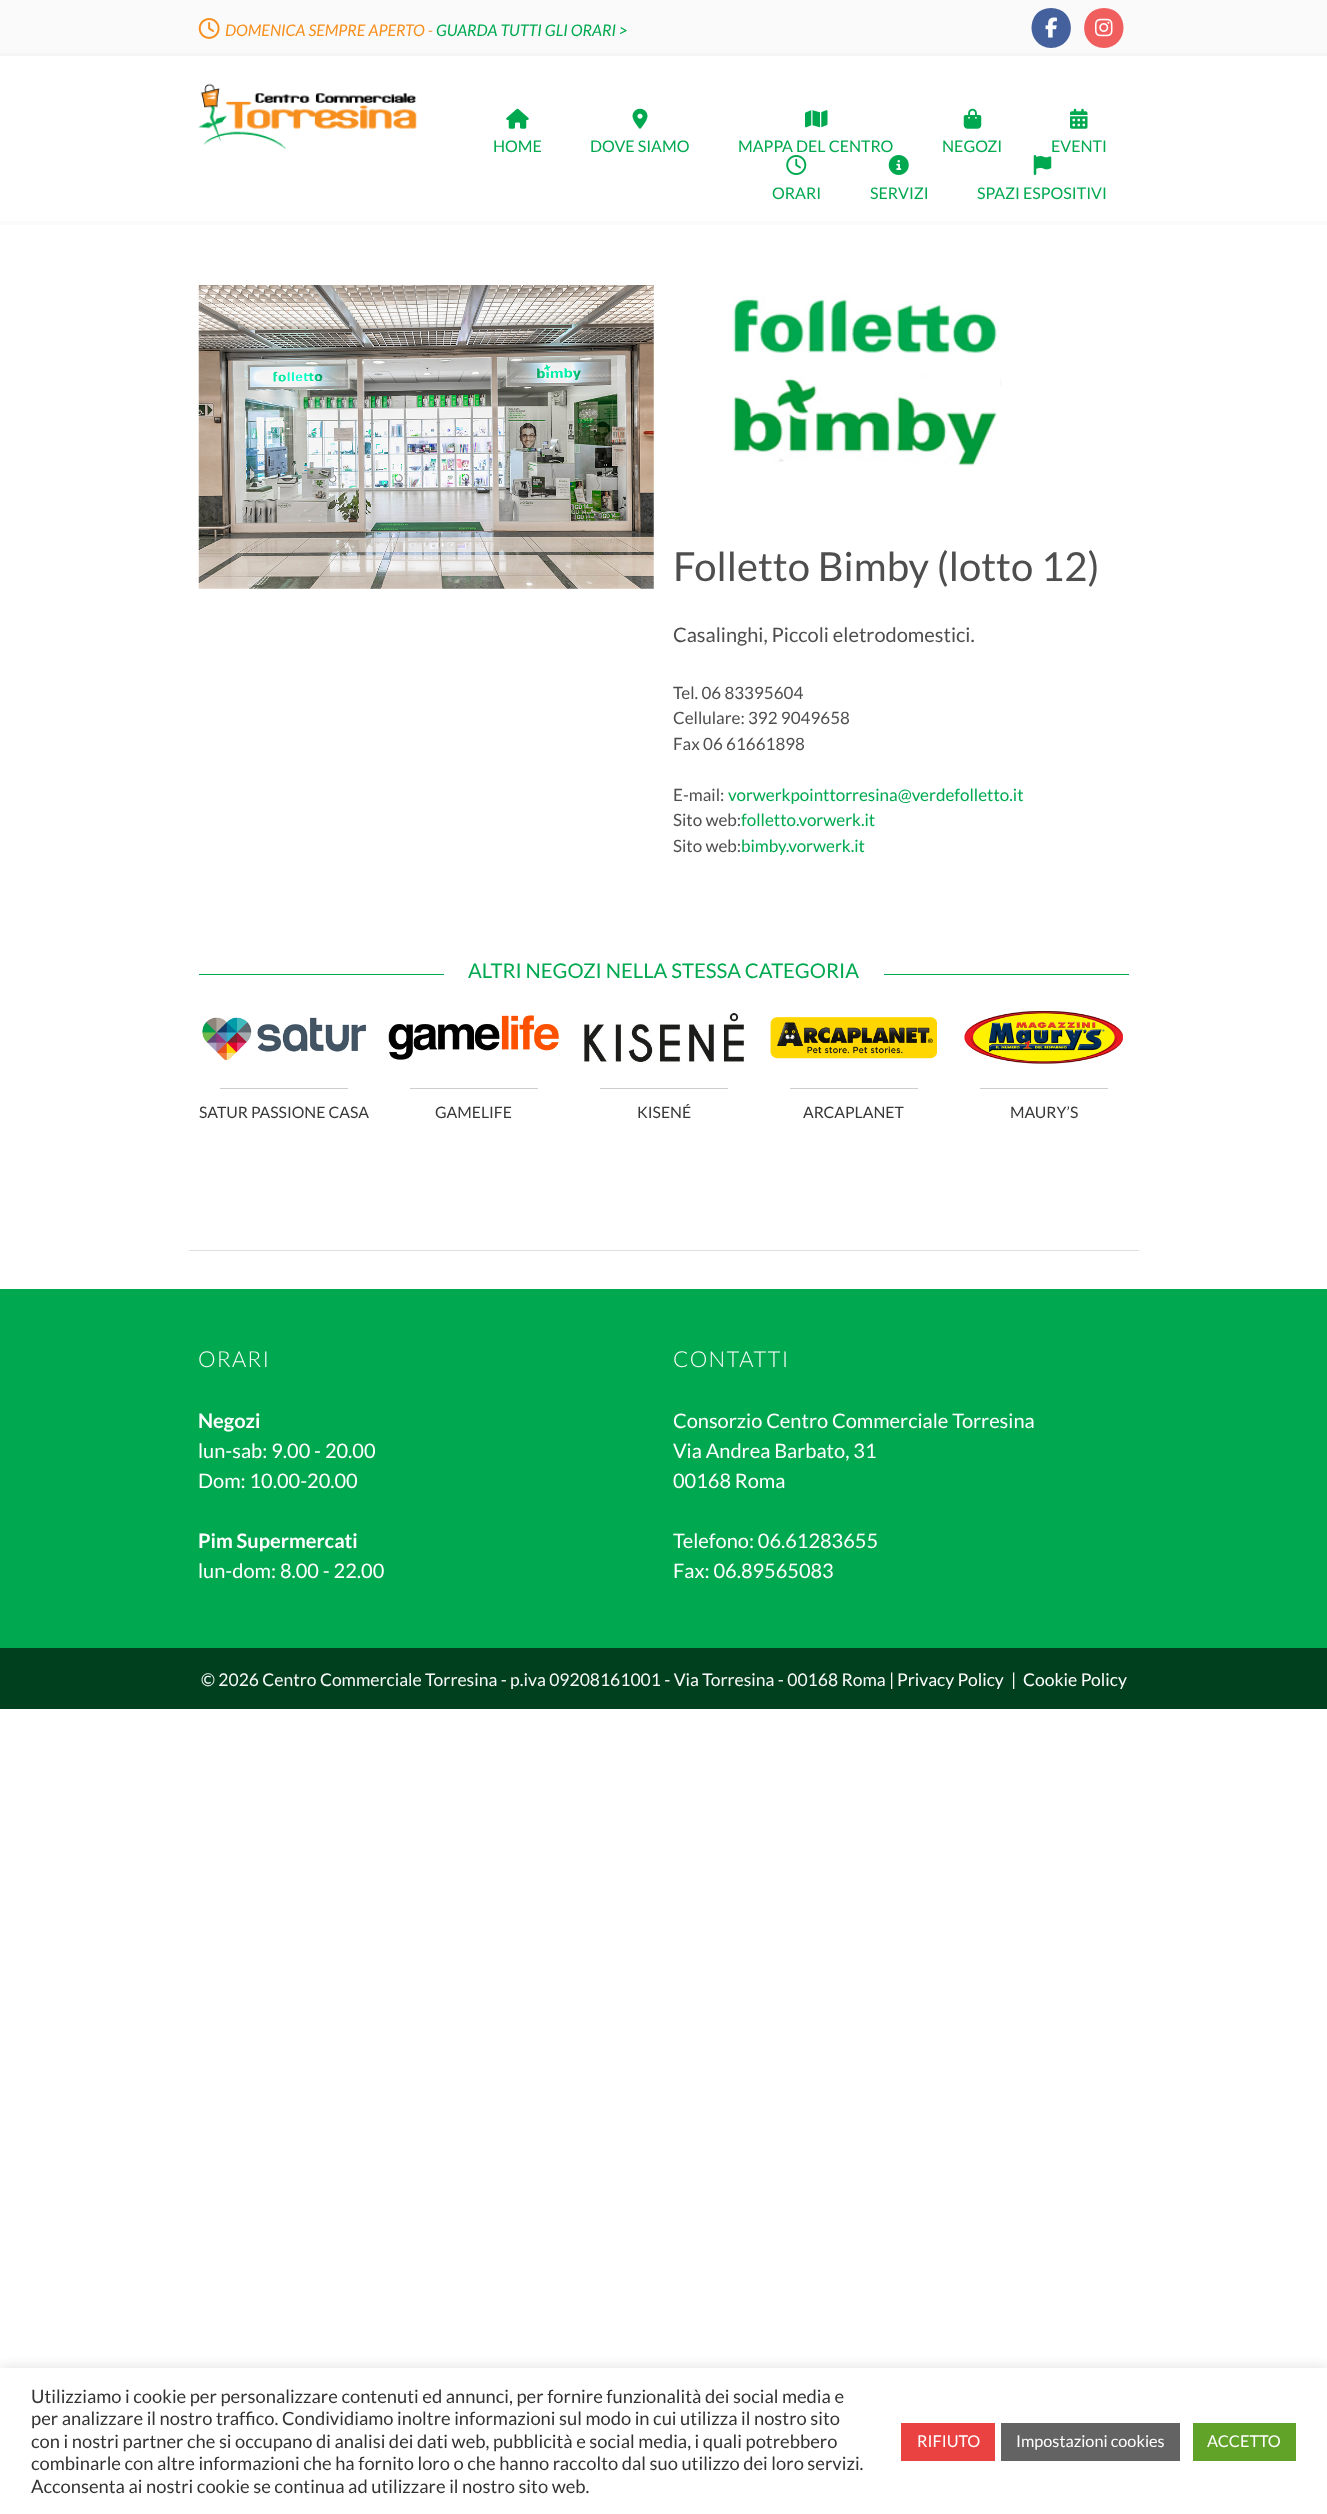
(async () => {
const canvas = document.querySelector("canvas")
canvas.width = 1327
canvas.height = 2514
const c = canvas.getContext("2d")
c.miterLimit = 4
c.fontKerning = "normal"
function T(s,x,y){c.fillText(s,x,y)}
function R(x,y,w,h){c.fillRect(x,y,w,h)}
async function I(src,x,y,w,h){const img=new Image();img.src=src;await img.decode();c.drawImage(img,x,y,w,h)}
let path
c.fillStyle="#fff"
R(0,0,1327,2514)
c.fillStyle="#fafafa"
R(0,0,1327,53)
c.fillStyle="#f5f5f5"
R(0,53,1327,3)
await I("1.png",198,18,22,21)
c.font="italic 16px Lato"
c.fillStyle="#f78f1e"
T("DOMENICA SEMPRE APERTO -",225,36)
c.fillStyle="#00a950"
T("GUARDA TUTTI GLI ORARI >",436,36)
c.fillStyle="#44619d"
path = new Path2D("M1051 48c27-1 26-40 0-40c-26 0-26 39 0 40z")
c.fill(path)
await I("2.png",1045,17,12,21)
c.fillStyle="#f15e5e"
path = new Path2D("M1104 48c26-1 26-40 0-40c-26 0-27 39 0 40z")
c.fill(path)
await I("3.png",1095,18,18,19)
c.fillStyle="#fafafa"
R(0,221,1327,4)
await I("4.png",198,83,219,66)
await I("5.png",506,108,23,21)
c.font="16px Lato"
c.fillStyle="#00a950"
T("HOME",493,152)
await I("6.png",632,108,16,21)
T("DOVE SIAMO",590,152)
await I("7.png",805,110,23,18)
T("MAPPA DEL CENTRO",738,152)
await I("8.png",963,108,19,21)
T("NEGOZI",942,152)
await I("9.png",1070,108,18,21)
T("EVENTI",1051,152)
await I("10.png",786,155,21,20)
T("ORARI",772,199)
await I("11.png",888,155,21,20)
T("SERVIZI",870,199)
await I("12.png",1033,155,19,20)
T("SPAZI ESPOSITIVI",977,199)
await I("13.png",198,285,456,304)
await I("14.png",733,294,269,172)
c.font="40px Lato"
c.fillStyle="#4e4e4e"
T("Folletto Bimby (lotto 12)",673,581)
c.font="20px Lato"
T("Casalinghi, Piccoli eletrodomestici.",673,642)
c.font="17px Lato"
T("Tel. 06 83395604",673,699)
T("Cellulare: 392 9049658",673,724)
T("Fax 06 61661898",673,750)
T("E-mail:",673,801)
c.fillStyle="#00a950"
T("vorwerkpointtorresina@verdefolletto.it",728,801)
c.fillStyle="#4e4e4e"
T("Sito web:",673,826)
c.fillStyle="#00a950"
T("folletto.vorwerk.it",741,826)
c.fillStyle="#4e4e4e"
T("Sito web:",673,852)
c.fillStyle="#00a950"
T("bimby.vorwerk.it",741,852)
R(199,974,930,1)
c.fillStyle="#fff"
R(444,974,440,1)
c.font="20.25px Lato"
c.fillStyle="#00a950"
T("ALTRI NEGOZI NELLA STESSA CATEGORIA",468,978)
await I("15.png",202,1017,165,43)
c.fillStyle="#cdcdcd"
R(220,1088,128,1)
c.font="15.75px Lato"
c.fillStyle="#393838"
T("SATUR PASSIONE CASA",199,1118)
await I("16.png",388,1015,171,45)
c.fillStyle="#cdcdcd"
R(410,1088,128,1)
c.fillStyle="#393838"
T("GAMELIFE",435,1118)
await I("17.png",584,1013,161,49)
c.fillStyle="#cdcdcd"
R(600,1088,128,1)
c.fillStyle="#393838"
T("KISENÉ",637,1118)
await I("18.png",770,1017,167,42)
c.fillStyle="#cdcdcd"
R(790,1088,128,1)
c.fillStyle="#393838"
T("ARCAPLANET",803,1118)
await I("19.png",964,1011,159,53)
c.fillStyle="#cdcdcd"
R(980,1088,128,1)
c.fillStyle="#393838"
T("MAURY’S",1010,1118)
c.fillStyle="#dedede"
R(189,1250,950,1)
c.fillStyle="#00a850"
R(0,1289,1327,359)
c.letterSpacing="1.25px"
c.font="300 22px Lato"
c.fillStyle="#fff"
T("ORARI",198,1367)
c.letterSpacing="0px"
c.font="bold 20px Lato"
T("Negozi",198,1428)
c.font="20px Lato"
T("lun-sab: 9.00 - 20.00",198,1458)
T("Dom: 10.00-20.00",198,1488)
c.font="bold 20px Lato"
T("Pim Supermercati",198,1548)
c.font="20px Lato"
T("lun-dom: 8.00 - 22.00",198,1578)
c.letterSpacing="1.25px"
c.font="300 22px Lato"
T("CONTATTI",673,1367)
c.letterSpacing="0px"
c.font="20px Lato"
T("Consorzio Centro Commerciale Torresina",673,1428)
T("Via Andrea Barbato, 31",673,1458)
T("00168 Roma",673,1488)
T("Telefono: 06.61283655",673,1548)
T("Fax: 06.89565083",673,1578)
c.fillStyle="#00401e"
R(0,1648,1327,61)
c.font="17.5px Lato"
c.fillStyle="#f8f9fa"
T("© 2026 Centro Commerciale Torresina - p.iva 09208161001 - Via Torresina - 00168 Roma |",201,1686)
c.fillStyle="#fff"
T("Privacy Policy",897,1686)
c.fillStyle="#f8f9fa"
T("|",1011,1686)
c.fillStyle="#fff"
T("Cookie Policy",1023,1686)
c.save()
c.beginPath()
c.rect(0,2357,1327,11)
c.clip()
c.fillStyle="#acabab4d"
c.filter="blur(6px)"
c.beginPath()
c.rect(0,2366,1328,148)
c.fill()
c.filter="none"
c.restore()
c.font="18.35px Lato"
c.fillStyle="#333"
T("Utilizziamo i cookie per personalizzare contenuti ed annunci, per fornire funzionalità dei social media e",31,2403)
T("per analizzare il nostro traffico. Condividiamo inoltre informazioni sul modo in cui utilizza il nostro sito",31,2425)
T("con i nostri partner che si occupano di analisi dei dati web, pubblicità e social media, i quali potrebbero",31,2448)
T("combinarle con altre informazioni che ha fornito loro o che hanno raccolto dal suo utilizzo dei loro servizi.",31,2470)
T("Acconsenta ai nostri cookie se continua ad utilizzare il nostro sito web.",31,2493)
c.fillStyle="#ea4141"
R(901,2423,94,38)
c.font="16.25px Lato"
c.fillStyle="#fff"
T("RIFIUTO",917,2447)
c.fillStyle="#636363"
R(1001,2423,179,38)
c.fillStyle="#fff"
T("Impostazioni cookies",1016,2447)
c.fillStyle="#61a229"
R(1193,2423,103,38)
c.fillStyle="#fff"
T("ACCETTO",1207,2447)
})()
